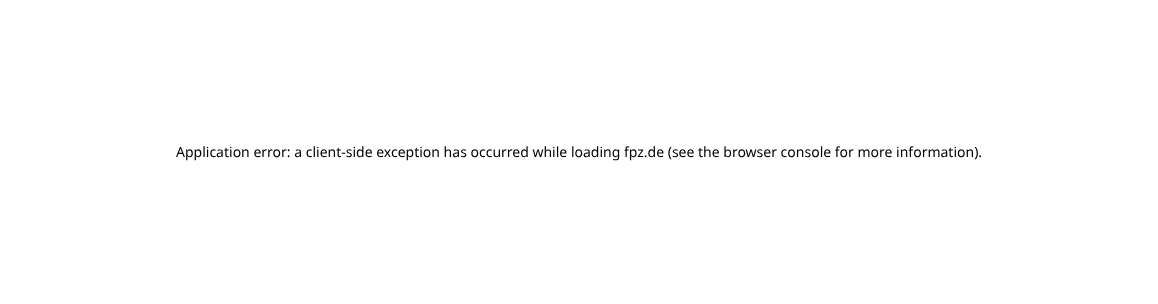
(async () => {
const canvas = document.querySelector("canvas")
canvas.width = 1158
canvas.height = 304
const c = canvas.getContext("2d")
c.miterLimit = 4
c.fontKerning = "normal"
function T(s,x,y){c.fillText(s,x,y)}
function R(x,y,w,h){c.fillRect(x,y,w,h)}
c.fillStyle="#fff"
R(0,0,1158,304)
c.font="14px Noto Sans"
c.fillStyle="#000"
T("Application error: a client-side exception has occurred while loading fpz.de (see the browser console for more information).",176,157)
})()
